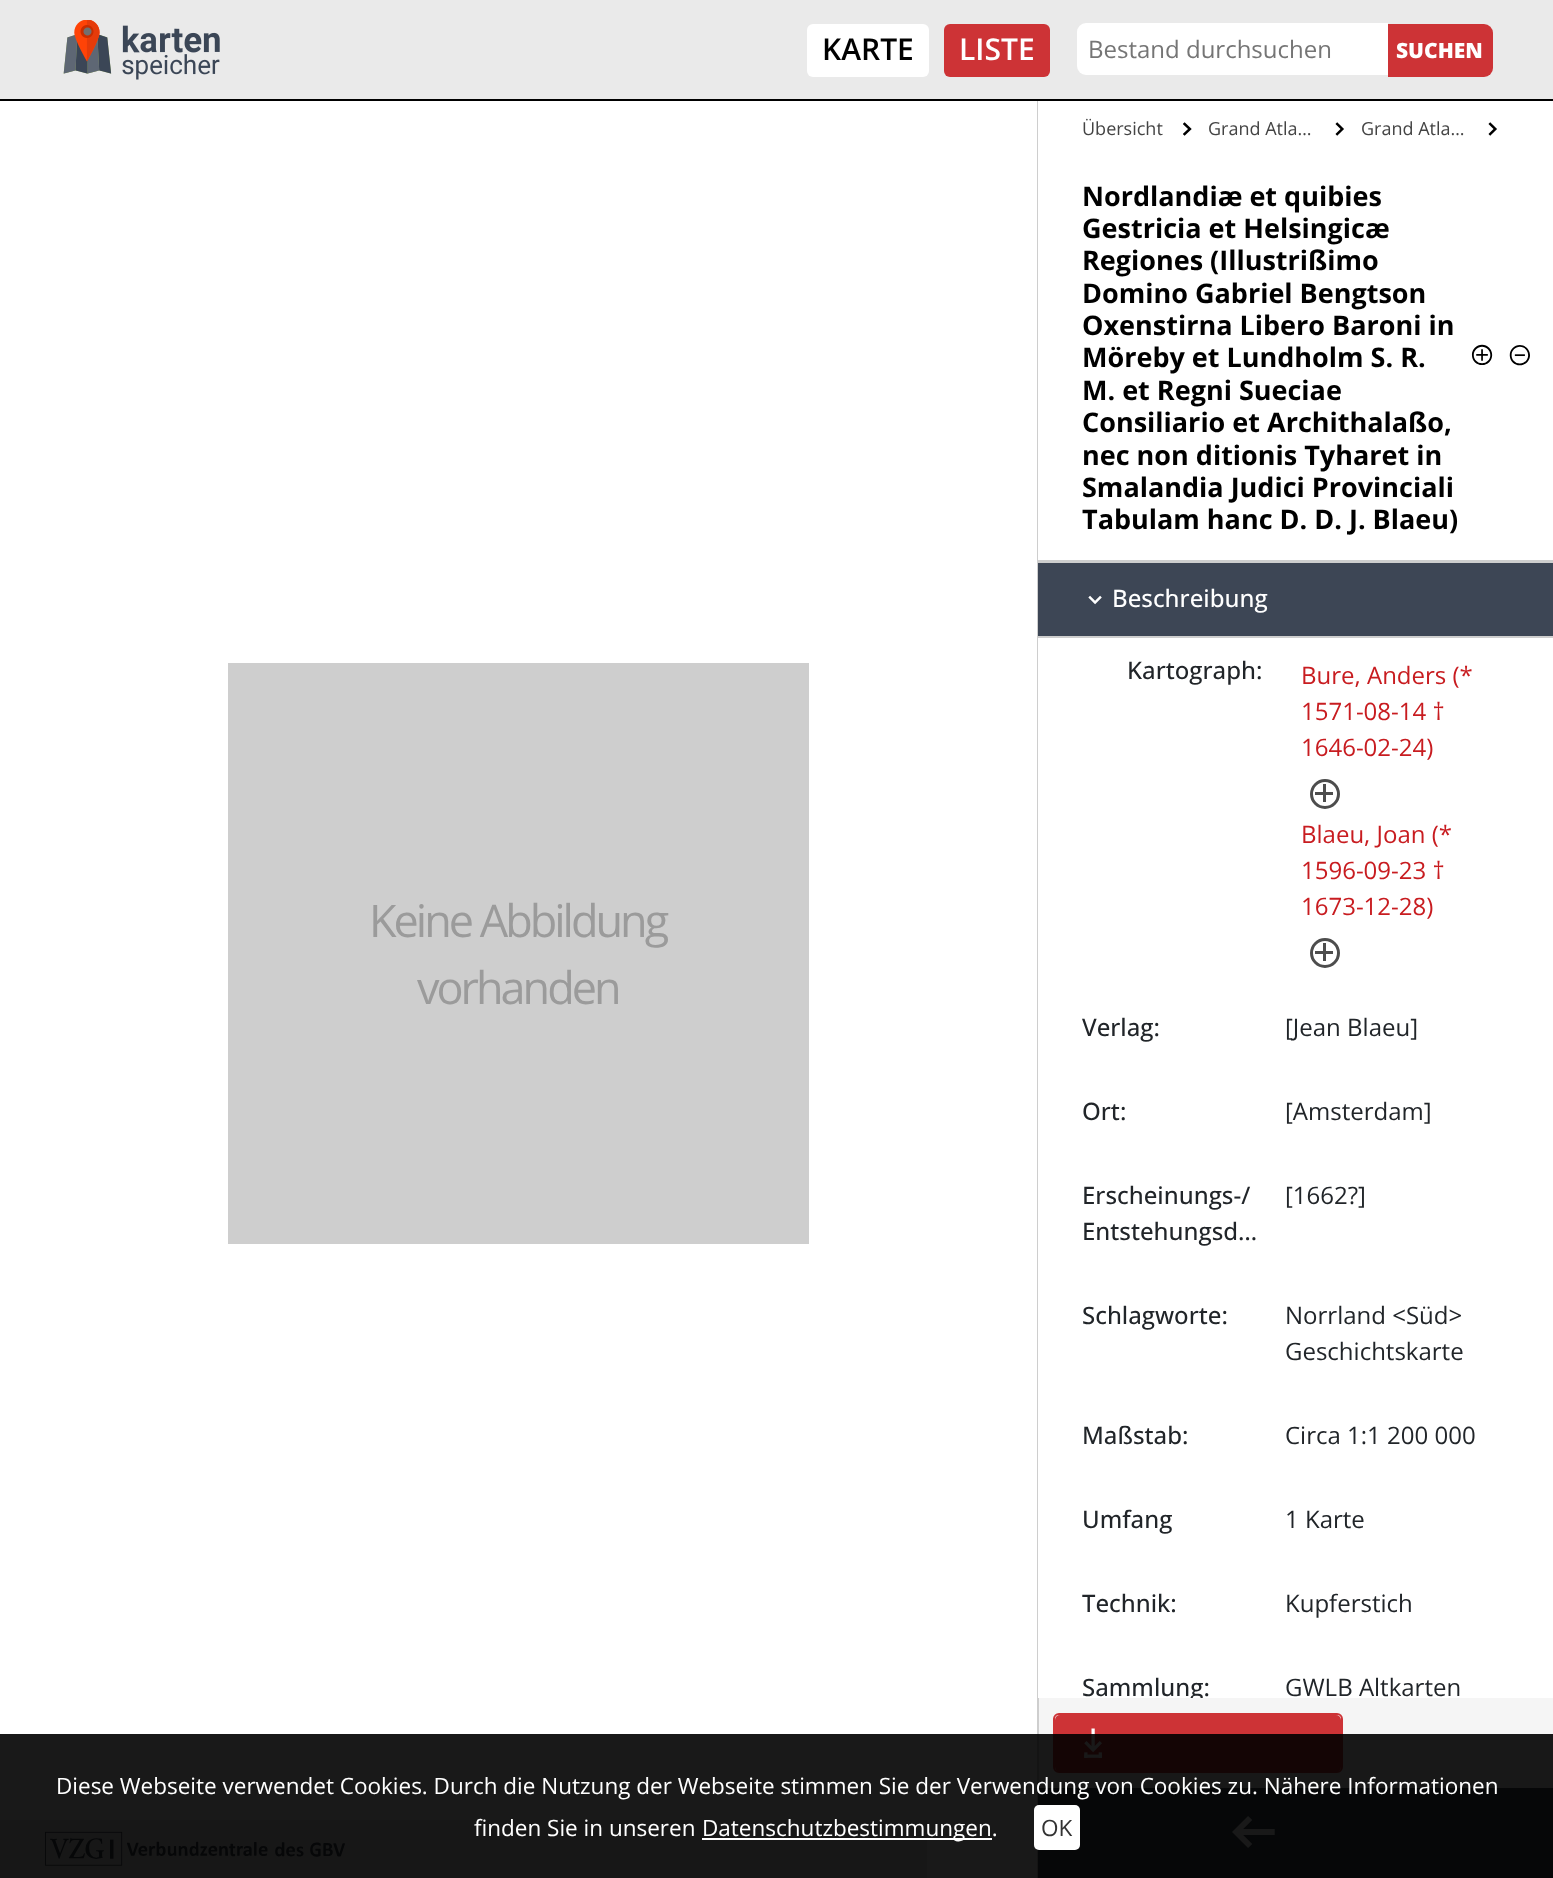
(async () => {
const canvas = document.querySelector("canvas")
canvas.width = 1553
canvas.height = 1878
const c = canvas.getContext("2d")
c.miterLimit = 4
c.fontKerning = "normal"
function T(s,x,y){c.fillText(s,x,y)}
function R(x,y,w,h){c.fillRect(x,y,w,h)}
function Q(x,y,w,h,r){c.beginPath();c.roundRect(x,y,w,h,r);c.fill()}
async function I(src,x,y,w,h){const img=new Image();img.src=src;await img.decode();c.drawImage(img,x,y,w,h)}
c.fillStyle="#fff"
R(0,0,1553,1878)
c.fillStyle="#eaeaea"
R(0,0,1553,99)
c.fillStyle="#000"
R(0,99,1553,2)
await I("1.png",63,20,157,60)
c.fillStyle="#fff"
Q(807,24,122,53,6)
c.font="600 30px Open Sans"
c.fillStyle="#000"
T("KARTE",822,60)
c.fillStyle="#cd3336"
Q(944,24,106,53,6)
c.fillStyle="#fff"
T("LISTE",959,60)
c.beginPath()
c.roundRect(1077,23,311,52,[9,0,0,9])
c.fill()
c.font="24px Open Sans"
c.fillStyle="#757575"
T("Bestand durchsuchen",1088,58)
c.fillStyle="#cd3336"
c.beginPath()
c.roundRect(1388,24,105,53,[0,9,9,0])
c.fill()
c.font="800 21px Open Sans"
c.fillStyle="#fff"
T("SUCHEN",1396,58)
c.fillStyle="#cecece"
R(228,663,581,581)
c.letterSpacing="-3px"
c.font="45px Open Sans"
c.fillStyle="#9b9b9b"
T("Keine Abbildung",369,937)
T("vorhanden",417,1004)
c.fillStyle="#f5f5f5"
R(1039,1698,514,90)
c.fillStyle="#cecece"
R(1037,101,2,1777)
c.fillStyle="#fff"
R(1038,101,1,1597)
c.letterSpacing="0px"
c.font="18px Open Sans"
c.fillStyle="#444"
T("Übersicht",1082,135)
await I("2.png",1183,122,9,14)
T("Grand Atla…",1208,135)
await I("3.png",1335,122,9,14)
T("Grand Atla…",1361,135)
await I("3.png",1488,122,9,14)
c.fillStyle="#cecece"
R(1038,560,515,3)
c.font="bold 27px Open Sans"
c.fillStyle="#000"
T("Nordlandiæ et quibies",1082,206)
T("Gestricia et Helsingicæ",1082,238)
T("Regiones (Illustrißimo",1082,270)
T("Domino Gabriel Bengtson",1082,303)
T("Oxenstirna Libero Baroni in",1082,335)
T("Möreby et Lundholm S. R.",1082,367)
await I("4.png",1471,344,22,21)
await I("5.png",1509,345,21,21)
T("M. et Regni Sueciae",1082,400)
T("Consiliario et Archithalaßo,",1082,432)
T("nec non ditionis Tyharet in",1082,465)
T("Smalandia Judici Provinciali",1082,497)
T("Tabulam hanc D. D. J. Blaeu)",1082,529)
c.fillStyle="#3d4655"
R(1038,563,515,73)
c.fillStyle="#cecece"
R(1038,636,515,2)
await I("6.png",1088,595,14,10)
c.font="500 24px Open Sans"
c.fillStyle="#fff"
T("Beschreibung",1112,607)
c.fillStyle="#212529"
T("Kartograph:",1127,679)
c.font="24px Open Sans"
c.fillStyle="#c81c20"
T("Bure, Anders (*",1301,684)
T("1571-08-14 †",1301,720)
T("1646-02-24)",1301,756)
c.beginPath()
c.arc(1325,794,13.5,0,7)
c.strokeStyle="#4d4d4d"
c.lineWidth=3
c.stroke()
c.fillStyle="#4d4d4d"
R(1323,784,3,18)
R(1315,792,18,3)
c.fillStyle="#c81c20"
T("Blaeu, Joan (*",1301,843)
T("1596-09-23 †",1301,879)
T("1673-12-28)",1301,915)
c.beginPath()
c.arc(1325,953,13.5,0,7)
c.stroke()
c.fillStyle="#4d4d4d"
R(1323,943,3,18)
R(1315,951,18,3)
c.font="500 24px Open Sans"
c.fillStyle="#212529"
T("Verlag:",1082,1036)
c.font="24px Open Sans"
T("[Jean Blaeu]",1285,1036)
c.font="500 24px Open Sans"
T("Ort:",1082,1120)
c.font="24px Open Sans"
T("[Amsterdam]",1285,1120)
c.font="500 24px Open Sans"
T("Erscheinungs-/",1082,1204)
T("Entstehungsd…",1082,1240)
c.font="24px Open Sans"
T("[1662?]",1285,1204)
c.font="500 24px Open Sans"
T("Schlagworte:",1082,1324)
c.font="24px Open Sans"
T("Norrland <Süd>",1285,1324)
T("Geschichtskarte",1285,1360)
c.font="500 24px Open Sans"
T("Maßstab:",1082,1444)
c.font="24px Open Sans"
T("Circa 1:1 200 000",1285,1444)
c.font="500 24px Open Sans"
T("Umfang",1082,1528)
c.font="24px Open Sans"
T("1 Karte",1285,1528)
c.font="500 24px Open Sans"
T("Technik:",1082,1612)
c.font="24px Open Sans"
T("Kupferstich",1285,1612)
c.save()
c.beginPath()
c.rect(1083,1670,186,28)
c.clip()
c.font="500 24px Open Sans"
T("Sammlung:",1082,1696)
c.restore()
T("GWLB Altkarten",1285,1696)
c.beginPath()
c.roundRect(1054,1714,288,58,5)
c.strokeStyle="#cd3336"
c.lineWidth=2
c.stroke()
c.fillStyle="#cd3336"
Q(1055,1715,286,57,5)
await I("7.png",1084,1728,18,30)
c.fillStyle="#3d4655"
R(1038,1788,515,90)
await I("8.png",1232,1816,43,32)
c.fillStyle="#eaeaea"
R(0,1820,927,58)
await I("9.png",45,1831,300,35)
c.fillStyle="#000000e6"
R(0,1734,1553,144)
c.font="22.5px Open Sans"
c.fillStyle="#fff"
T("Diese Webseite verwendet Cookies. Durch die Nutzung der Webseite stimmen Sie der Verwendung von Cookies zu. Nähere Informationen",56,1794)
T("finden Sie in unseren",474,1836)
R(702,1838,290,2)
T("Datenschutzbestimmungen.",702,1836)
Q(1034,1805,46,45,5)
c.fillStyle="#333"
T("OK",1041,1836)
})()
